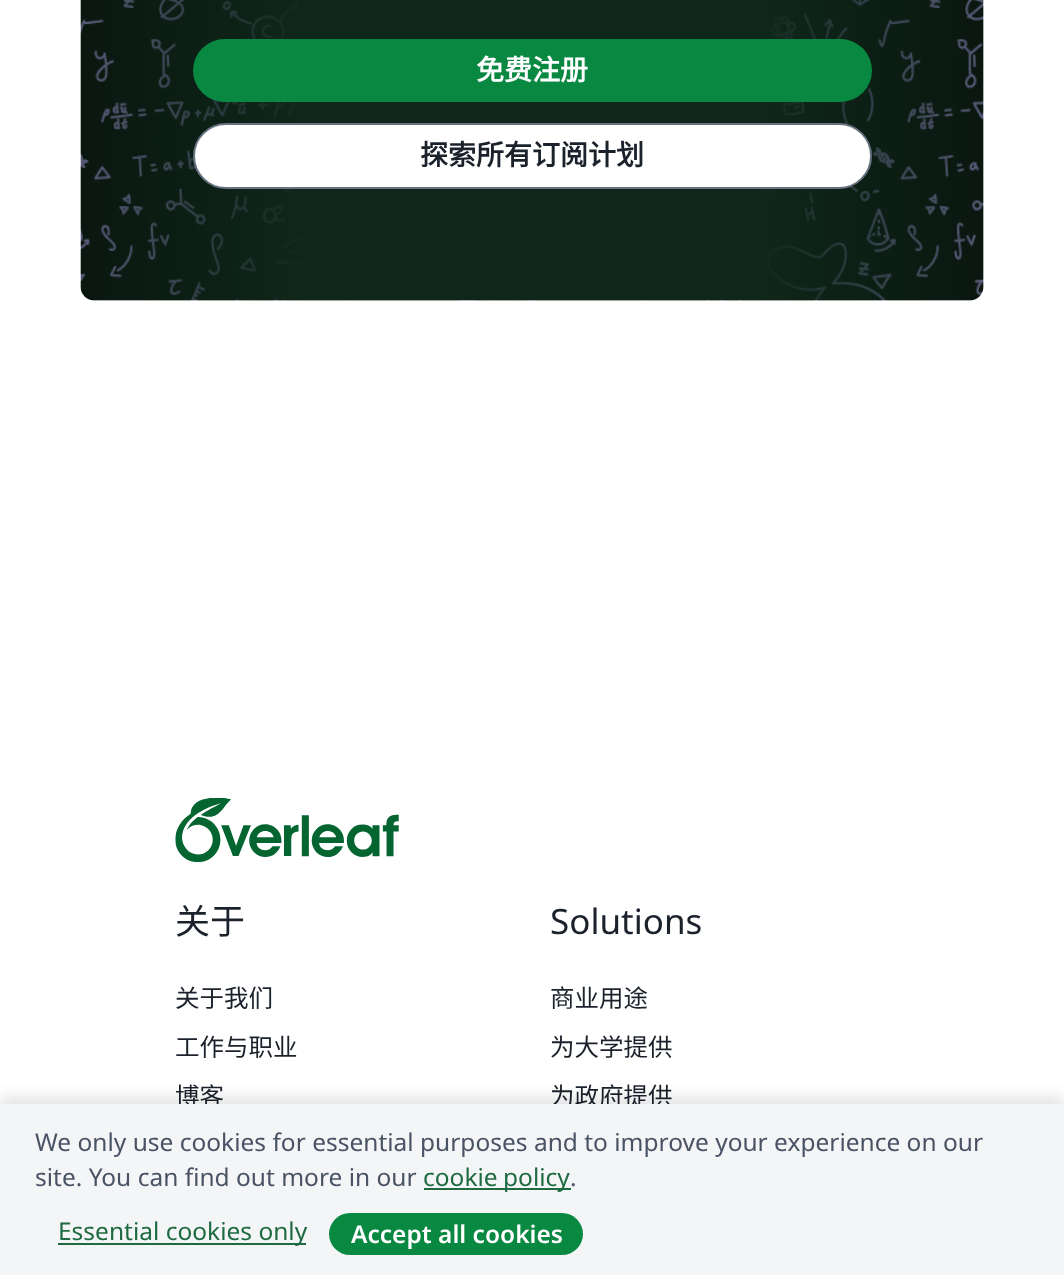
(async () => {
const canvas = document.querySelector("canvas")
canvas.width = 1064
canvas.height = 1275
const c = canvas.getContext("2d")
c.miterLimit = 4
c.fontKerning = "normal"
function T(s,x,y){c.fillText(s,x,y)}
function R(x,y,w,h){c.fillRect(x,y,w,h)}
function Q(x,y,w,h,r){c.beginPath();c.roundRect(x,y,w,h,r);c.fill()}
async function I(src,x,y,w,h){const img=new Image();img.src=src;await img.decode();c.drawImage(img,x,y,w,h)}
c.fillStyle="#fff"
R(0,0,1064,1275)
c.fillStyle="#f4f5f6"
Q(81,-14,903,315,14)
await I("1.png",80,0,904,301)
c.fillStyle="#098842"
Q(193,39,679,63,31.5)
c.font="bold 28px Noto Sans CJK SC"
c.fillStyle="#fff"
T("免费注册",476,80)
c.beginPath()
c.roundRect(194,124,677,64,32)
c.fill()
c.strokeStyle="#677283"
c.lineWidth=2
c.stroke()
c.fillStyle="#1b222c"
T("探索所有订阅计划",420,165)
await I("2.png",175,798,224,64)
c.font="35px Noto Sans CJK SC"
T("关于",175,934)
c.font="24.5px Noto Sans CJK SC"
T("关于我们",175,1007)
T("工作与职业",175,1056)
T("博客",175,1105)
c.font="35px Noto Sans"
T("Solutions",550,934)
c.font="24.5px Noto Sans CJK SC"
T("商业用途",550,1007)
T("为大学提供",550,1056)
T("为政府提供",550,1105)
c.fillStyle="#0000001a"
c.filter="blur(7px)"
c.beginPath()
c.rect(0,1096,1064,171)
c.fill()
c.filter="none"
c.fillStyle="#f4f5f6"
R(0,1104,1064,171)
c.font="24.5px Noto Sans"
c.fillStyle="#495365"
T("We only use cookies for essential purposes and to improve your experience on our",35,1151)
T("site. You can find out more in our",35,1186)
c.fillStyle="#1e6b41"
R(424,1188,147,2)
c.wordSpacing="-1px"
T("cookie policy",423,1186)
c.wordSpacing="0px"
c.fillStyle="#495365"
T(".",570,1186)
c.fillStyle="#1e6b41"
R(58,1243,248,2)
T("Essential cookies only",58,1240)
c.fillStyle="#098842"
Q(329,1213,254,42,21)
c.font="600 24.5px Noto Sans"
c.fillStyle="#fff"
T("Accept all cookies",351,1243)
})()
